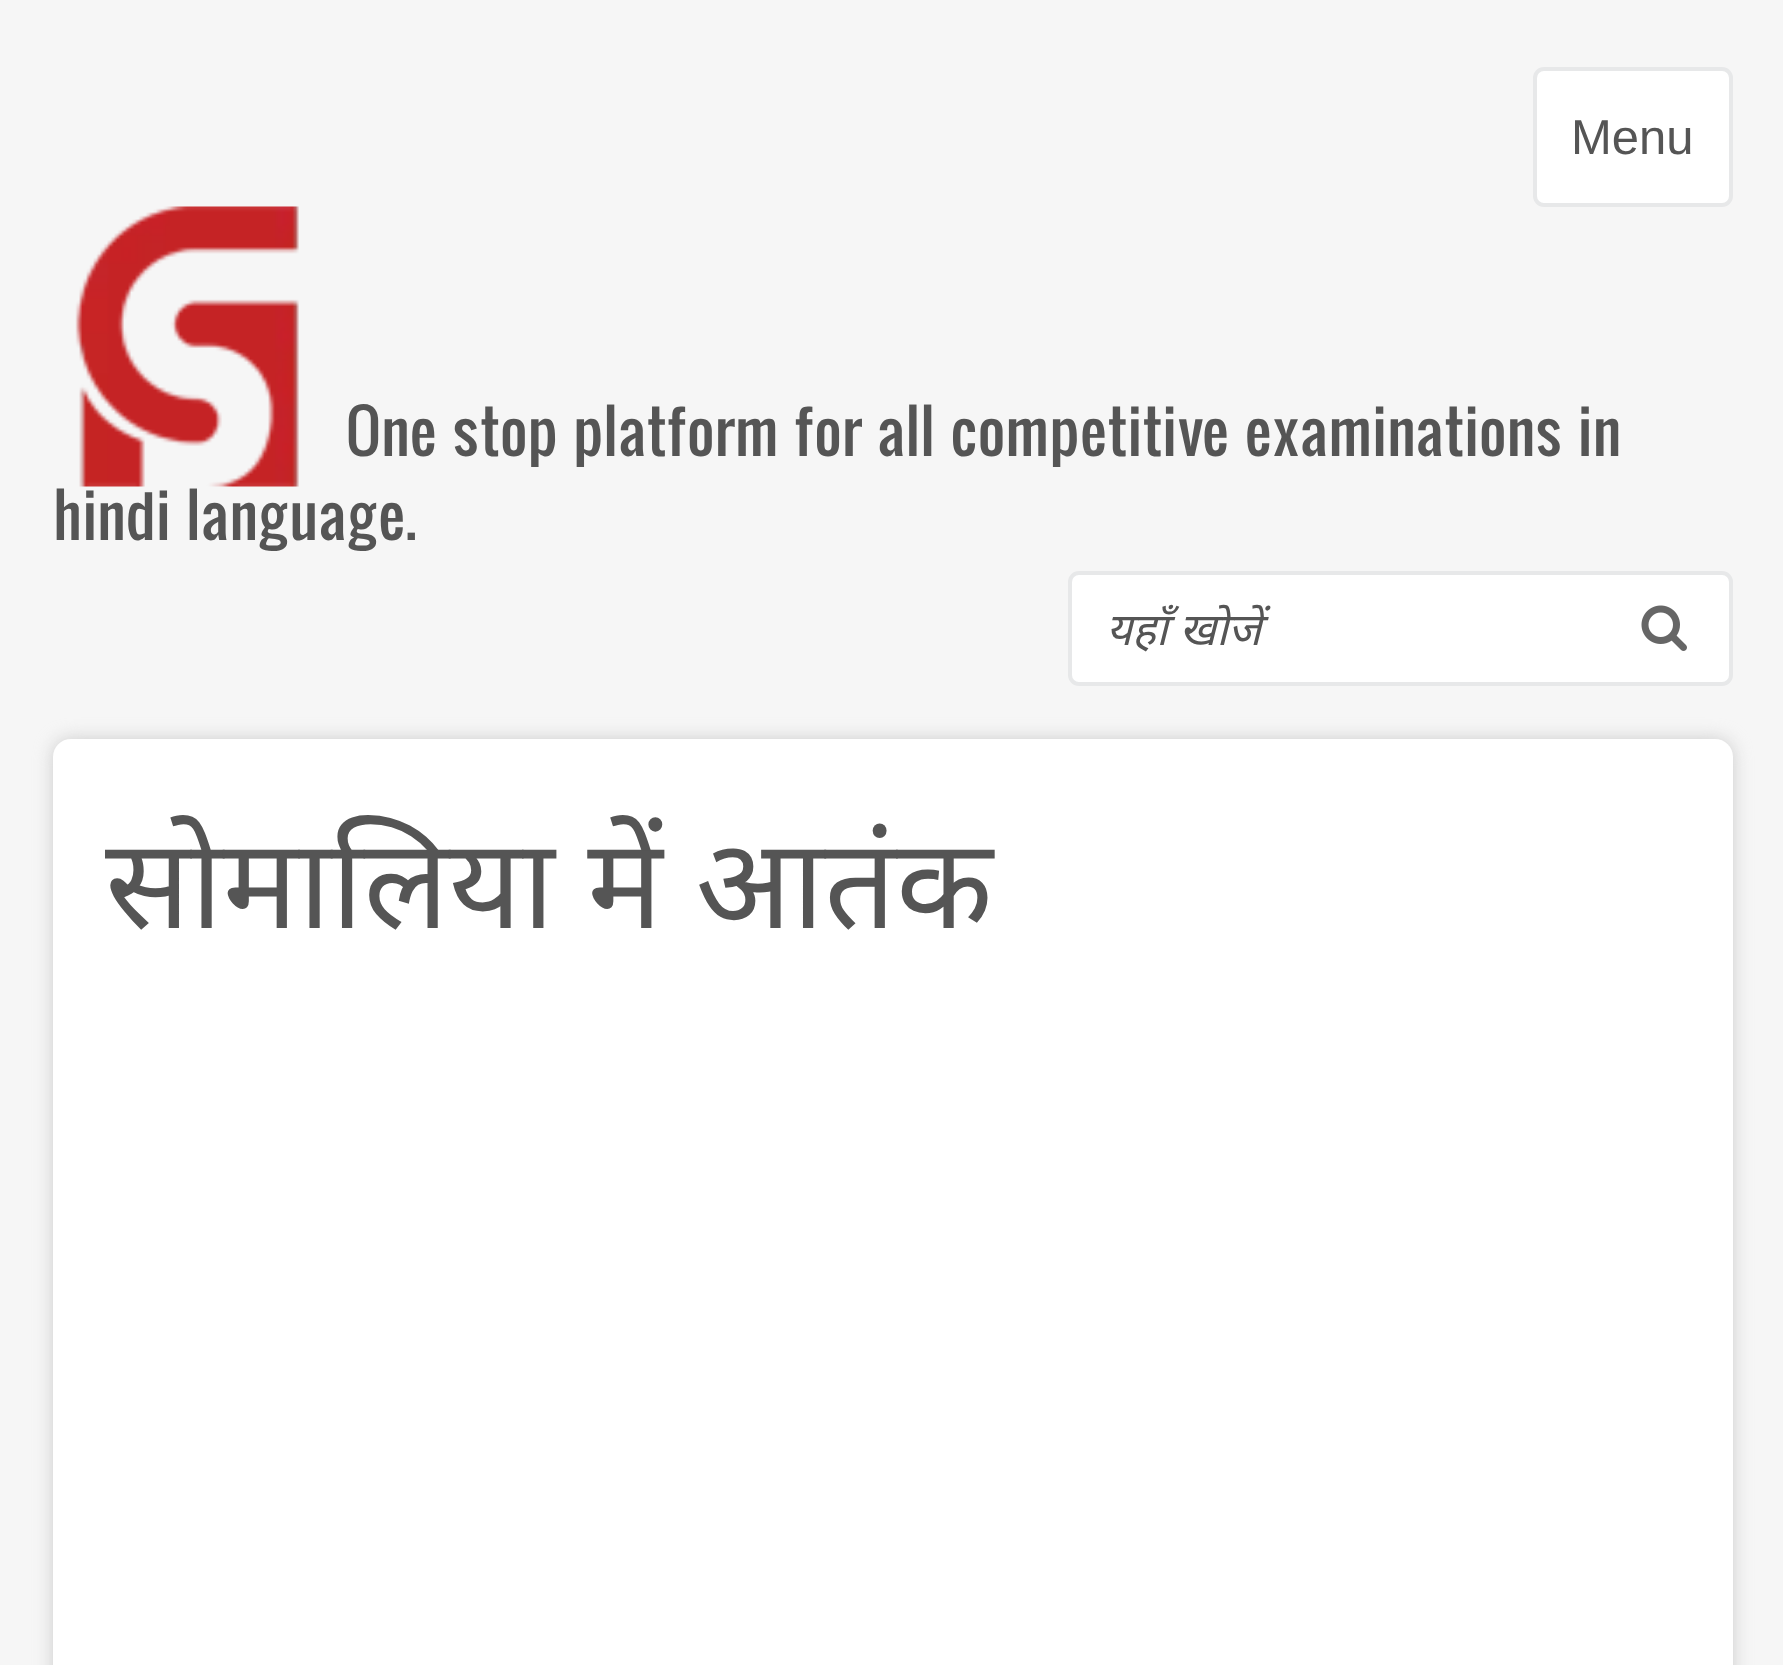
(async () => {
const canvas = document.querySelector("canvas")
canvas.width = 1783
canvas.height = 1665
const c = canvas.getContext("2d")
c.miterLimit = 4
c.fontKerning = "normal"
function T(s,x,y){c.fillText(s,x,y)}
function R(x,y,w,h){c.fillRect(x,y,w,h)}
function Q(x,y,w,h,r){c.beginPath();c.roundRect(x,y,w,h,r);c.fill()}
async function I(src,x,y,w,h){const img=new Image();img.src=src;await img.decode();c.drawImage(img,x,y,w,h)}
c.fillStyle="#f6f6f6"
R(0,0,1783,1665)
c.fillStyle="#fff"
c.beginPath()
c.roundRect(1535,69,196,136,9)
c.fill()
c.strokeStyle="#e7e8e9"
c.lineWidth=4
c.stroke()
c.font="49px Liberation Sans"
c.fillStyle="#555"
T("Menu",1571,154)
await I("1.png",75,206,224,281)
c.wordSpacing="-0.25px"
c.font="58.8px Oswald"
T("One stop platform for all competitive examinations in",346,456)
c.wordSpacing="0px"
T("hindi language.",53,540)
c.fillStyle="#fff"
c.beginPath()
c.roundRect(1070,573,661,111,9)
c.fill()
c.stroke()
c.font="italic 45px Noto Sans"
c.fillStyle="#555"
T("यहाँ खोजें",1106,645)
await I("2.png",1641,605,46,46)
c.fillStyle="#ccc"
c.filter="blur(9px)"
c.beginPath()
c.roundRect(53,739,1680,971,18)
c.fill()
c.filter="none"
c.fillStyle="#fff"
Q(53,739,1680,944,18)
c.font="126px Noto Sans"
c.fillStyle="#555"
T("सोमालिया में आतंक",105,928)
})()
